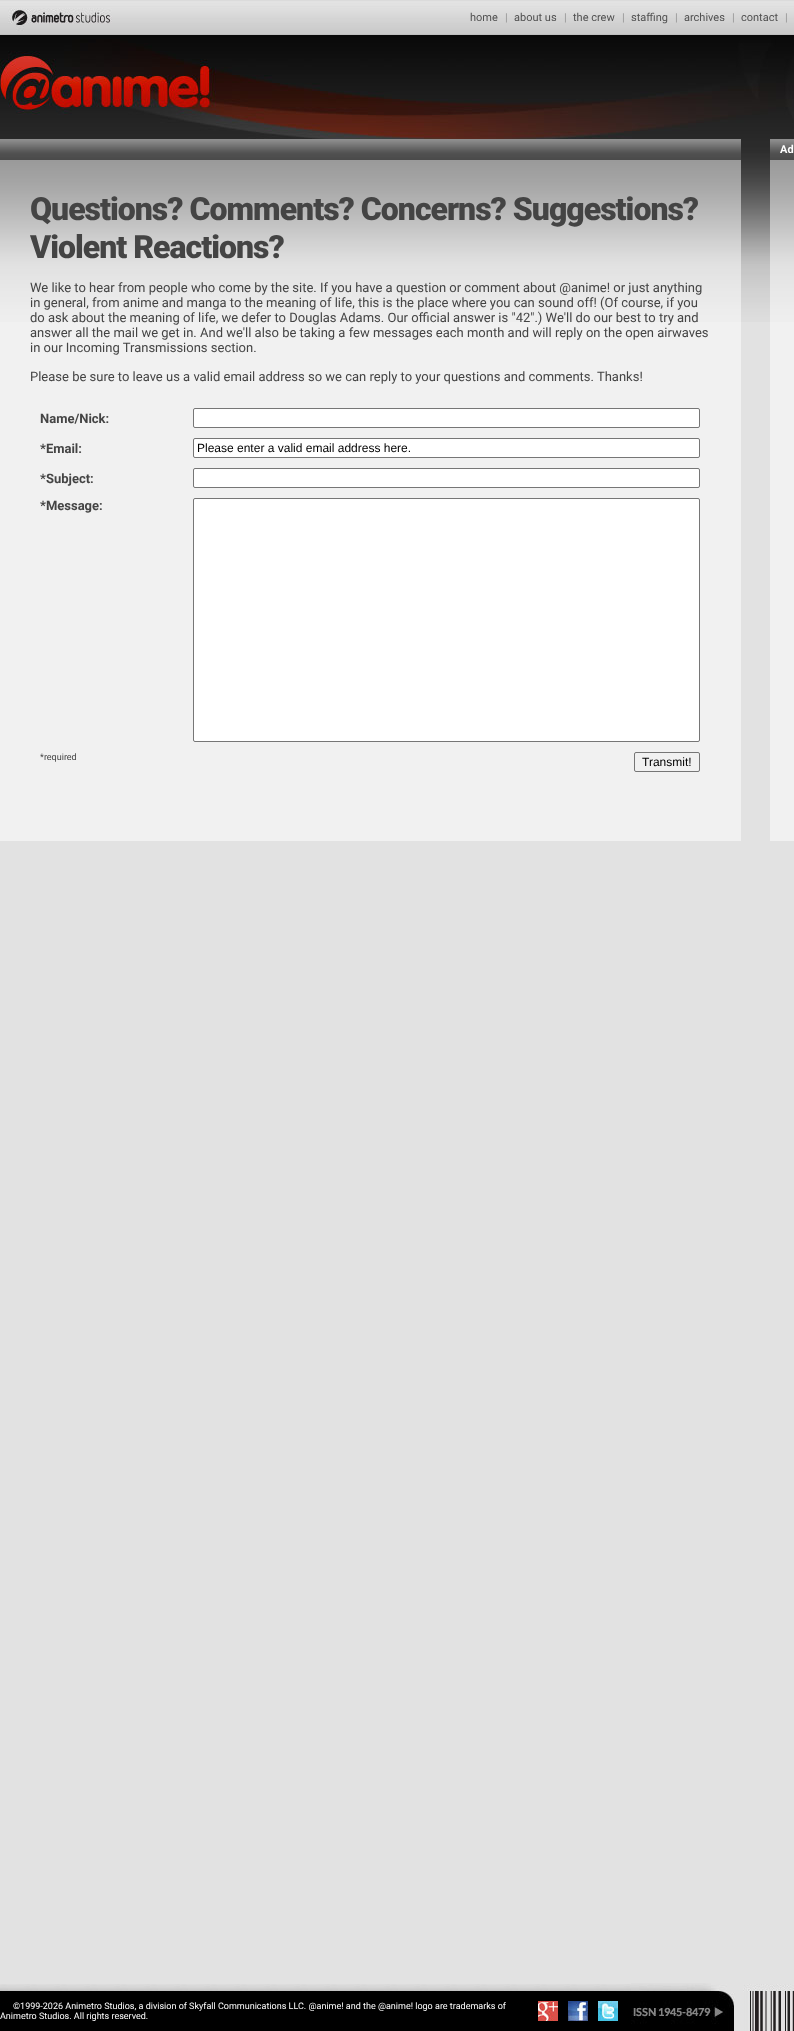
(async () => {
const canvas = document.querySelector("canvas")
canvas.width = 794
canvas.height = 2031
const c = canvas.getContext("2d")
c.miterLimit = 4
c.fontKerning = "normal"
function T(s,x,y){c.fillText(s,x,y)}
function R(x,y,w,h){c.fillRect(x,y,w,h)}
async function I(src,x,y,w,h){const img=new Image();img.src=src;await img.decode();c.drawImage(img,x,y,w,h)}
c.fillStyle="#e2e2e2"
R(0,0,794,2031)
await I("1.png",0,0,794,322)
await I("2.png",8,8,104,23)
c.font="11px Roboto"
c.fillStyle="#515151"
T("home",470,21)
c.fillStyle="#959595"
T("|",505,21)
c.fillStyle="#515151"
T("about us",514,21)
c.fillStyle="#959595"
T("|",564,21)
c.fillStyle="#515151"
T("the crew",573,21)
c.fillStyle="#959595"
T("|",622,21)
c.fillStyle="#515151"
T("staffing",631,21)
c.fillStyle="#959595"
T("|",675,21)
c.fillStyle="#515151"
T("archives",684,21)
c.fillStyle="#959595"
T("|",732,21)
c.fillStyle="#515151"
T("contact",741,21)
c.fillStyle="#959595"
T("|",785,21)
await I("3.png",0,39,794,100)
await I("4.png",0,139,741,21)
await I("5.png",770,139,24,21)
c.font="bold 11px Roboto"
c.fillStyle="#fff"
T("Ad",780,153)
c.fillStyle="#ffffff80"
R(0,160,741,681)
c.letterSpacing="-1px"
c.font="900 32px Roboto"
c.fillStyle="#444"
T("Questions? Comments? Concerns? Suggestions?",30,220)
T("Violent Reactions?",30,258)
c.letterSpacing="0px"
c.font="13px Roboto"
T("We like to hear from people who come by the site. If you have a question or comment about @anime! or just anything",30,292)
T("in general, from anime and manga to the meaning of life, this is the place where you can sound off! (Of course, if you",30,307)
T("do ask about the meaning of life, we defer to Douglas Adams. Our official answer is \"42\".) We'll do our best to try and",30,322)
T("answer all the mail we get in. And we'll also be taking a few messages each month and will reply on the open airwaves",30,337)
T("in our Incoming Transmissions section.",30,352)
T("Please be sure to leave us a valid email address so we can reply to your questions and comments. Thanks!",30,381)
c.font="bold 13px Roboto"
T("Name/Nick:",40,423)
c.fillStyle="#fff"
c.beginPath()
c.roundRect(193.5,408.5,506,19,1.5)
c.fill()
c.strokeStyle="#767676"
c.stroke()
c.fillStyle="#444"
T("*Email:",40,453)
c.fillStyle="#fff"
c.beginPath()
c.roundRect(193.5,438.5,506,19,1.5)
c.fill()
c.stroke()
c.font="12px Liberation Sans"
c.fillStyle="#000"
T("Please enter a valid email address here.",197,452)
c.font="bold 13px Roboto"
c.fillStyle="#444"
T("*Subject:",40,483)
c.fillStyle="#fff"
c.beginPath()
c.roundRect(193.5,468.5,506,19,1.5)
c.fill()
c.stroke()
c.fillStyle="#444"
T("*Message:",40,510)
c.fillStyle="#fff"
c.beginPath()
c.roundRect(193.5,498.5,506,243,1.5)
c.fill()
c.stroke()
c.font="9px Roboto"
c.fillStyle="#444"
T("*required",40,760)
c.beginPath()
c.roundRect(634.5,752.5,65,19,1.5)
c.stroke()
c.font="12px Liberation Sans"
c.fillStyle="#000"
T("Transmit!",642,766)
c.fillStyle="#ffffff80"
R(770,160,24,681)
await I("6.png",0,1984,631,47)
c.font="9px Roboto"
c.fillStyle="#fff"
T("©1999-2026 Animetro Studios, a division of Skyfall Communications LLC. @anime! and the @anime! logo are trademarks of",13,2009)
T("Animetro Studios. All rights reserved.",0,2019)
await I("7.png",538,2001,20,20)
await I("8.png",568,2001,20,20)
await I("9.png",598,2001,20,20)
await I("10.png",631,1983,163,48)
})()
